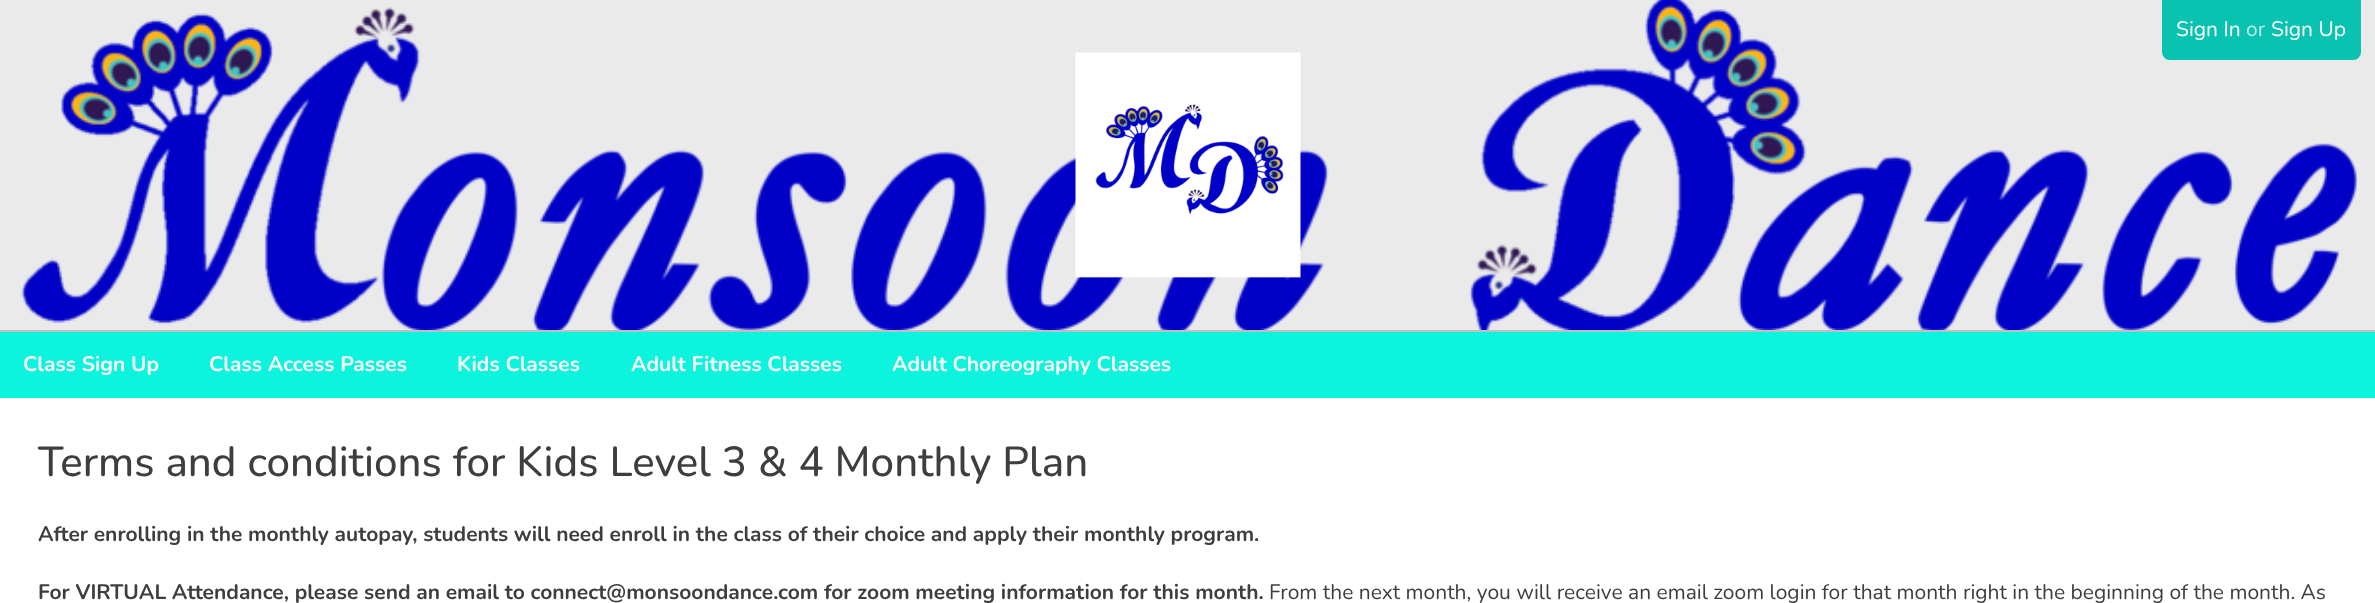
(async () => {
const canvas = document.querySelector("canvas")
canvas.width = 2375
canvas.height = 603
const c = canvas.getContext("2d")
c.miterLimit = 4
c.fontKerning = "normal"
function T(s,x,y){c.fillText(s,x,y)}
function R(x,y,w,h){c.fillRect(x,y,w,h)}
async function I(src,x,y,w,h){const img=new Image();img.src=src;await img.decode();c.drawImage(img,x,y,w,h)}
c.fillStyle="#fff"
R(0,0,2375,603)
c.fillStyle="#eaeaea"
R(0,0,2375,330)
c.fillStyle="#bfbfbf"
R(0,330,2375,2)
await I("1.png",21,0,2337,330)
c.fillStyle="#0cf4dd"
c.beginPath()
c.roundRect(2162,0,199,60,[0,0,8,8])
c.fill()
c.fillStyle="#00000033"
c.beginPath()
c.roundRect(2162,0,199,60,[0,0,8,8])
c.fill()
c.font="21px Nunito"
c.fillStyle="#fff"
T("Sign In",2176,36)
c.fillStyle="#b5ede8"
T("or",2246,36)
c.fillStyle="#fff"
T("Sign Up",2271,36)
await I("2.png",1075,52,226,226)
c.fillStyle="#0cf4dd"
R(0,332,2375,66)
c.font="bold 21px Nunito"
c.fillStyle="#fff"
T("Class Sign Up",23,371)
T("Class Access Passes",209,371)
T("Kids Classes",457,371)
T("Adult Fitness Classes",631,371)
T("Adult Choreography Classes",892,371)
c.font="500 42px Nunito"
c.fillStyle="#3e3e3e"
T("Terms and conditions for Kids Level 3 & 4 Monthly Plan",38,476)
c.font="bold 21px Nunito"
T("After enrolling in the monthly autopay, students will need enroll in the class of their choice and apply their monthly program.",38,541)
T("For VIRTUAL Attendance, please send an email to connect@monsoondance.com for zoom meeting information for this month.",38,599)
c.font="21px Nunito"
T("From the next month, you will receive an email zoom login for that month right in the beginning of the month. As",1269,599)
})()
